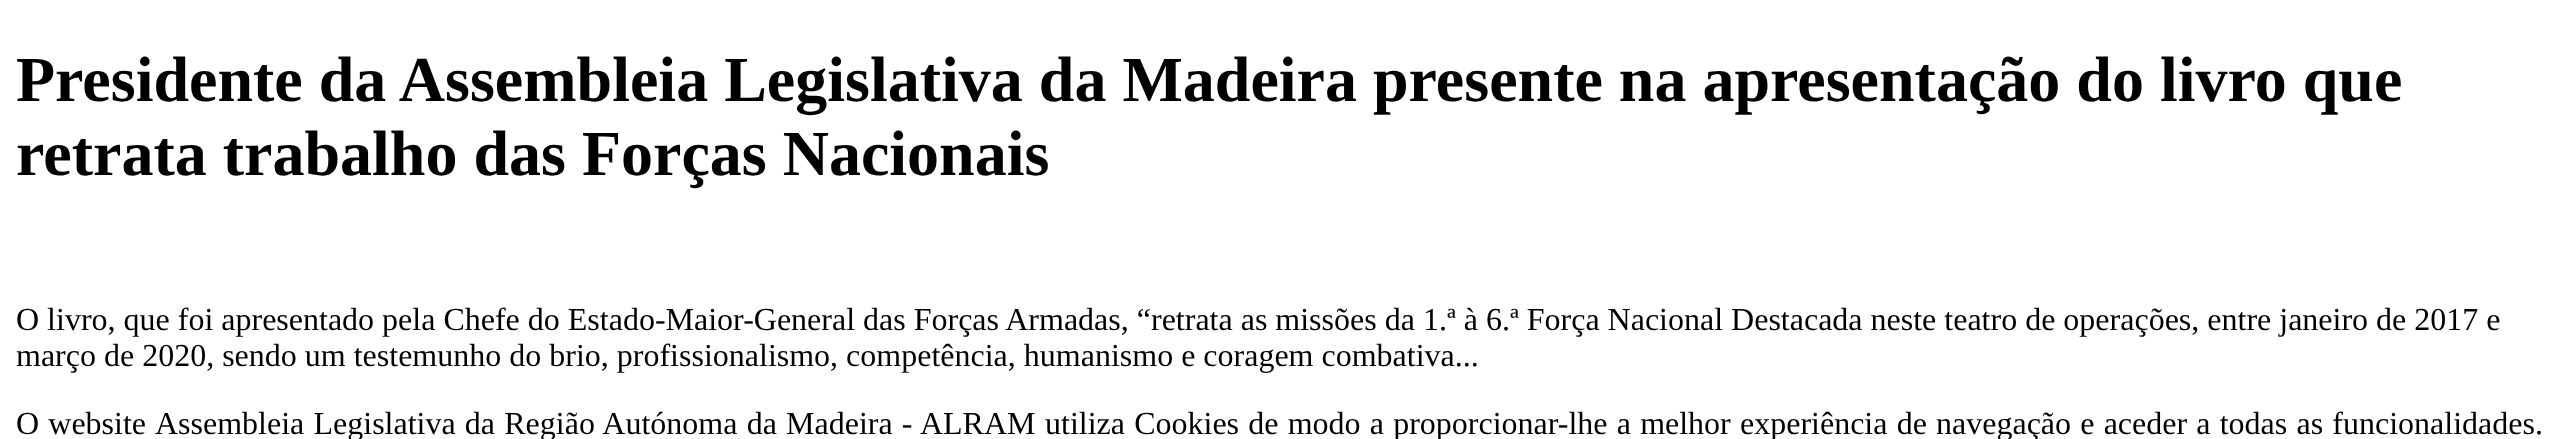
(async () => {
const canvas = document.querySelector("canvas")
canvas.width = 2557
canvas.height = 439
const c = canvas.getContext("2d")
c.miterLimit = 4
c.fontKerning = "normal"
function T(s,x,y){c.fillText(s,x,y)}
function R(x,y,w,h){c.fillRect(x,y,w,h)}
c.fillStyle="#fff"
R(0,0,2557,439)
c.font="bold 64px Liberation Serif"
c.fillStyle="#000"
T("Presidente da Assembleia Legislativa da Madeira presente na apresentação do livro que",16,101)
T("retrata trabalho das Forças Nacionais",16,175)
c.font="32px Liberation Serif"
T("O livro, que foi apresentado pela Chefe do Estado-Maior-General das Forças Armadas, “retrata as missões da 1.ª à 6.ª Força Nacional Destacada neste teatro de operações, entre janeiro de 2017 e",16,330)
T("março de 2020, sendo um testemunho do brio, profissionalismo, competência, humanismo e coragem combativa...",16,366)
c.wordSpacing="1.2px"
T("O website",16,434)
T("Assembleia Legislativa da Região Autónoma da Madeira - ALRAM",155,434)
T("utiliza Cookies de modo a proporcionar-lhe a melhor experiência de navegação e aceder a todas as funcionalidades.",1045,434)
})()
